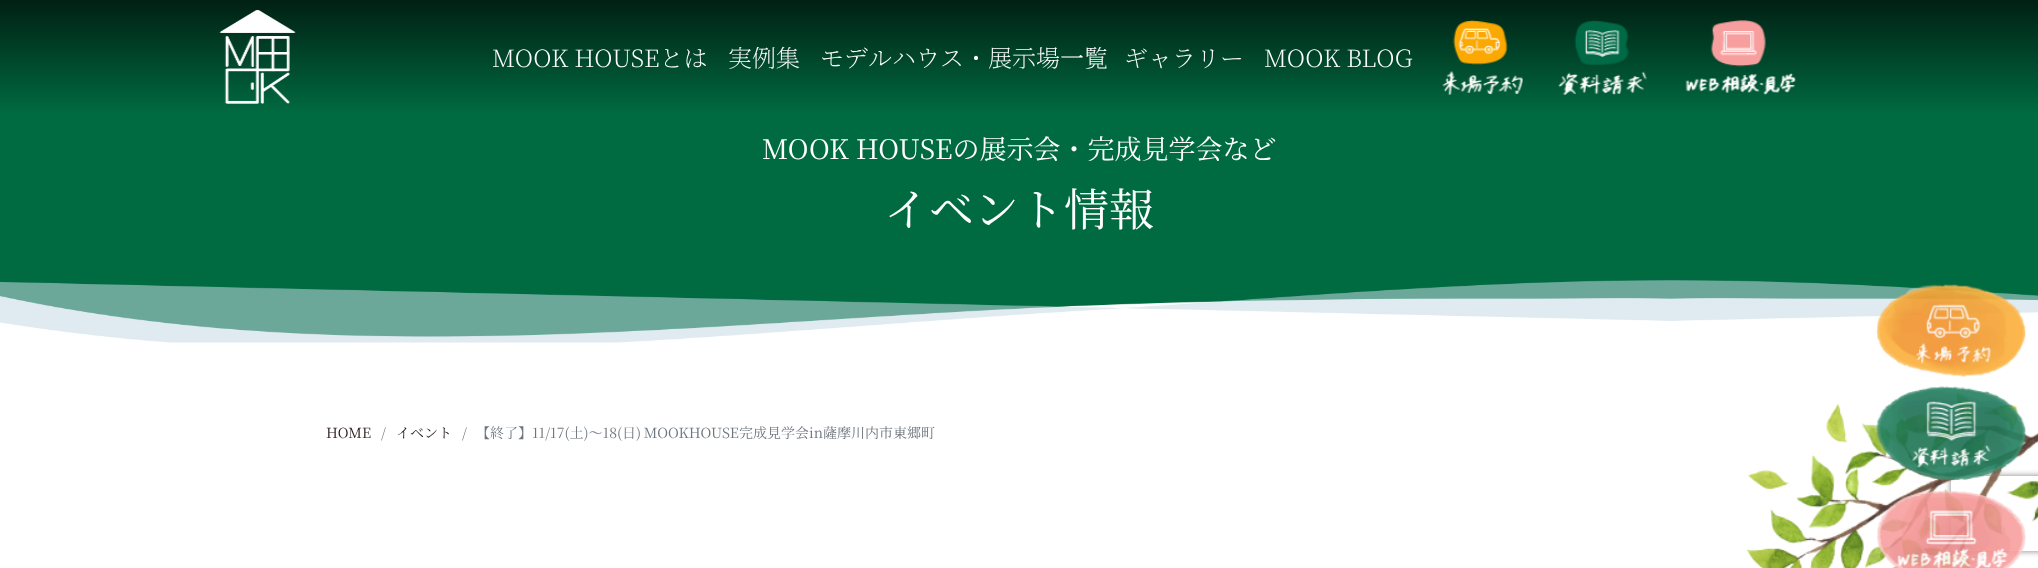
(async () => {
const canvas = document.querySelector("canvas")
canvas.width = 2038
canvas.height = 568
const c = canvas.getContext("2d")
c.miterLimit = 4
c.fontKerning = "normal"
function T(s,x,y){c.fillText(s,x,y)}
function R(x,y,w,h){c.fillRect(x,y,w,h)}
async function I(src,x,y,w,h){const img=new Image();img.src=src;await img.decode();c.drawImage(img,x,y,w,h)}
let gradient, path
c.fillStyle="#fff"
R(0,0,2038,568)
gradient = c.createLinearGradient(1019,0,1019,115)
gradient.addColorStop(0,"#002014")
gradient.addColorStop(1,"#006b41")
c.fillStyle = gradient
R(0,0,2038,115)
await I("1.png",219,10,77,94)
c.font="200 24px Noto Serif JP"
c.fillStyle="#fff"
T("MOOK HOUSEとは",492,67)
T("実例集",728,67)
T("モデルハウス・展示場一覧",820,67)
T("ギャラリー",1124,67)
T("MOOK BLOG",1264,67)
await I("2.png",1442,20,81,75)
await I("3.png",1558,20,89,75)
await I("4.png",1685,20,111,75)
await I("5.png",1746,390,292,178)
c.fillStyle="#006b41"
R(0,115,2038,222)
c.font="27px Noto Serif JP"
c.fillStyle="#fff"
T("MOOK HOUSEの展示会・完成見学会など",762,159)
c.font="45px Noto Serif JP"
T("イベント情報",884,226)
await I("6.png",0,280,2038,63)
c.font="14px Noto Serif JP"
c.fillStyle="#231815"
T("HOME",326,438)
c.fillStyle="#6c757d"
T("/",381,438)
c.fillStyle="#231815"
T("イベント",396,438)
c.fillStyle="#6c757d"
T("/",462,438)
c.wordSpacing="-1px"
T("【終了】11/17(土)～18(日) MOOKHOUSE完成見学会in薩摩川内市東郷町",476,438)
await I("7.png",1876,284,150,93)
c.save()
path = new Path2D("M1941 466h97v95h-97zm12.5 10h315c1.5 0 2.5 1 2.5 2.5v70c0 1.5-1 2.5-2.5 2.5h-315c-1.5 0-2.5-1-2.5-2.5v-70c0-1.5 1-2.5 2.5-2.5z")
c.clip(path,"evenodd")
c.fillStyle="#808080"
c.filter="blur(3px)"
c.beginPath()
c.roundRect(1951,476,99,75,2.5)
c.fill()
c.filter="none"
c.restore()
await I("8.png",1876,386,150,94)
await I("9.png",1877,490,149,78)
})()
